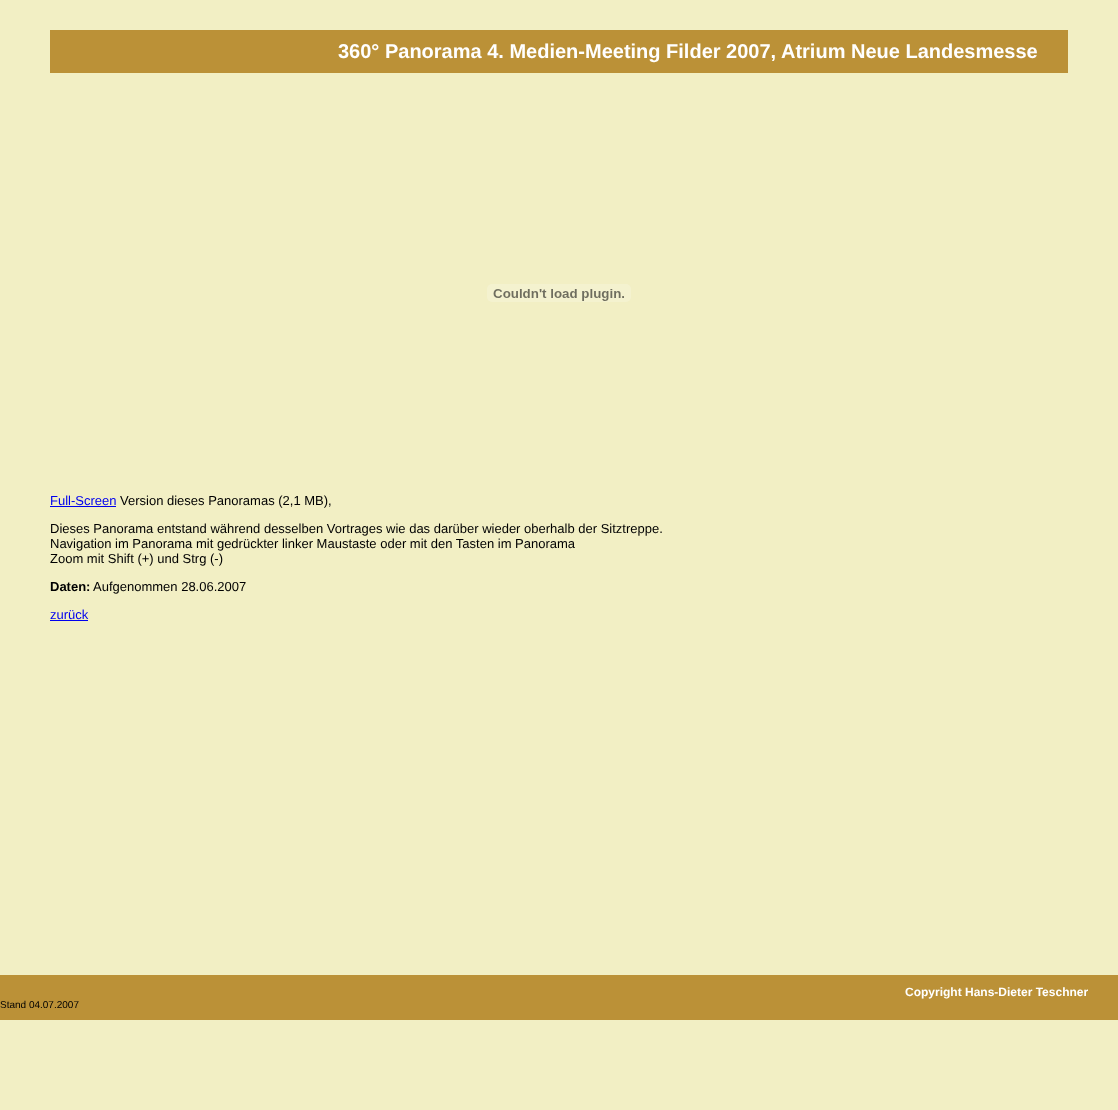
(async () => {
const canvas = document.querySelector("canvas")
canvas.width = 1118
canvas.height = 1110
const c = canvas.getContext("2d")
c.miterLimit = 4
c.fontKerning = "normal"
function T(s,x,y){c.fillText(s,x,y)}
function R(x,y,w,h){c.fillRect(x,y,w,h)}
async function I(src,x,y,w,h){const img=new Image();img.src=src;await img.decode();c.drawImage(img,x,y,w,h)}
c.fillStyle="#f2efc4"
R(0,0,1118,1110)
c.fillStyle="#bb9137"
R(50,30,1018,43)
c.font="bold 20px Liberation Sans"
c.fillStyle="#fff"
T("360° Panorama 4. Medien-Meeting Filder 2007, Atrium Neue Landesmesse",338,58)
await I("1.png",487,284,144,18)
c.font="13px Liberation Sans"
c.fillStyle="#00e"
T("Full-Screen",50,505)
R(50,506,66,1)
c.fillStyle="#000"
T("Version dieses Panoramas (2,1 MB),",120,505)
T("Dieses Panorama entstand während desselben Vortrages wie das darüber wieder oberhalb der Sitztreppe.",50,533)
T("Navigation im Panorama mit gedrückter linker Maustaste oder mit den Tasten im Panorama",50,548)
T("Zoom mit Shift (+) und Strg (-)",50,563)
c.font="bold 13px Liberation Sans"
T("Daten:",50,591)
c.font="13px Liberation Sans"
T("Aufgenommen 28.06.2007",93,591)
c.fillStyle="#00e"
T("zurück",50,619)
R(50,620,38,1)
c.fillStyle="#bb9137"
R(0,975,1118,45)
c.font="bold 12px Liberation Sans"
c.fillStyle="#fff"
T("Copyright Hans-Dieter Teschner",905,996)
c.font="10px Liberation Sans"
c.fillStyle="#000"
T("Stand 04.07.2007",0,1008)
})()
